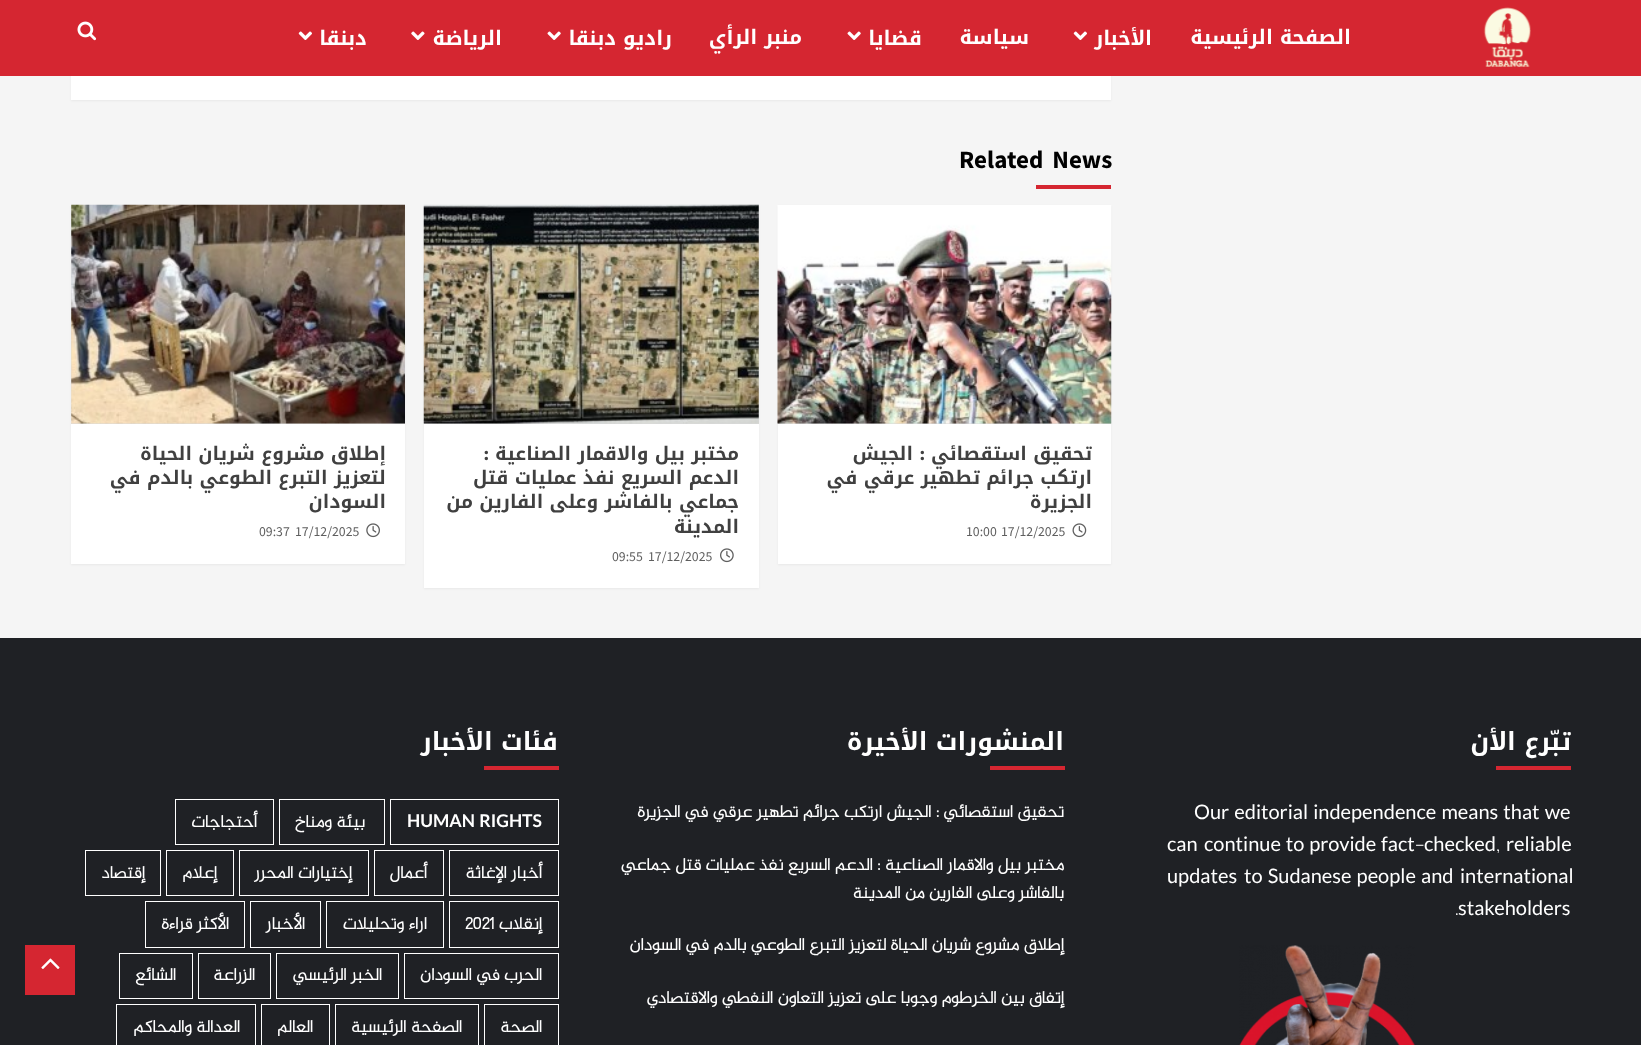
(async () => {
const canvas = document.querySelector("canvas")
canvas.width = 1641
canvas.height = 1045
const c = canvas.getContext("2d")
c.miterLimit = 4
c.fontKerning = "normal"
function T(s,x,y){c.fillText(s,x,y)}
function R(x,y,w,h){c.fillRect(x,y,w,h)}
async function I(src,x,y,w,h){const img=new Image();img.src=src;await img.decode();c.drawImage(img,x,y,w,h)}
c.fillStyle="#f5f5f5"
R(0,0,1641,1045)
c.fillStyle="#0000000d"
c.filter="blur(1px)"
c.beginPath()
c.rect(71,-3,1040,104)
c.fill()
c.filter="none"
c.fillStyle="#d52631"
R(0,0,1641,76)
await I("1.png",1483,7,48,60)
c.direction="rtl"
c.font="bold 20px Noto Kufi Arabic"
c.fillStyle="#fff"
T("الصفحة الرئيسية",1351,44)
T("الأخبار",1152,45)
await I("2.png",1073,31,14,9)
T("سياسة",1029,44)
T("قضايا",922,45)
await I("3.png",847,31,14,9)
T("منبر الرأي",802,44)
T("راديو دبنقا",672,45)
await I("3.png",547,31,14,9)
T("الرياضة",502,45)
await I("4.png",411,31,14,9)
T("دبنقا",367,45)
await I("2.png",298,31,14,9)
await I("5.png",77,21,20,20)
R(71,76,1040,24)
c.wordSpacing="4px"
c.direction="ltr"
c.font="bold 25px Source Sans Pro"
c.fillStyle="#000"
T("Related News",959,168)
c.fillStyle="#d52631"
R(1036,185,75,4)
c.fillStyle="#0000000d"
c.filter="blur(1px)"
c.beginPath()
c.rect(778,206,333,359)
c.fill()
c.filter="none"
c.fillStyle="#fff"
R(778,424,333,140)
c.fillStyle="#d8d8d8"
R(778,423,333,1)
await I("6.png",777,205,335,219)
c.wordSpacing="0px"
c.direction="rtl"
c.font="bold 18.75px Noto Kufi Arabic"
c.fillStyle="#404040"
T("تحقيق استقصائي",1092,460)
c.font="bold 18.75px Source Sans Pro"
T(":",925,460)
c.font="bold 18.75px Noto Kufi Arabic"
T("الجيش",913,460)
T("ارتكب جرائم تطهير عرقي في",1092,484)
T("الجزيرة",1092,508)
await I("7.png",1072,523,15,15)
c.direction="ltr"
c.font="13.75px Source Sans Pro"
c.fillStyle="#5f5f5f"
T("17/12/2025",1001,536)
T("10:00",966,536)
c.fillStyle="#0000000d"
c.filter="blur(1px)"
c.beginPath()
c.rect(424,206,335,383)
c.fill()
c.filter="none"
c.fillStyle="#fff"
R(424,424,335,164)
c.fillStyle="#d8d8d8"
R(424,205,335,219)
await I("8.png",423,204,336,220)
c.direction="rtl"
c.font="bold 18.75px Noto Kufi Arabic"
c.fillStyle="#404040"
T("مختبر بيل والاقمار الصناعية",739,460)
c.font="bold 18.75px Source Sans Pro"
T(":",489,460)
c.font="bold 18.75px Noto Kufi Arabic"
T("الدعم السريع نفذ عمليات قتل",739,484)
T("جماعي بالفاشر وعلى الفارين من",739,508)
T("المدينة",739,533)
await I("9.png",720,548,14,15)
c.direction="ltr"
c.font="13.75px Source Sans Pro"
c.fillStyle="#5f5f5f"
T("17/12/2025",648,561)
T("09:55",612,561)
c.fillStyle="#0000000d"
c.filter="blur(1px)"
c.beginPath()
c.rect(71,206,334,359)
c.fill()
c.filter="none"
c.fillStyle="#fff"
R(71,424,334,140)
c.fillStyle="#d8d8d8"
R(71,205,334,219)
await I("10.png",71,204,334,220)
c.direction="rtl"
c.font="bold 18.75px Noto Kufi Arabic"
c.fillStyle="#404040"
T("إطلاق مشروع شريان الحياة",386,460)
T("لتعزيز التبرع الطوعي بالدم في",386,484)
T("السودان",386,508)
await I("11.png",366,523,14,15)
c.direction="ltr"
c.font="13.75px Source Sans Pro"
c.fillStyle="#5f5f5f"
T("17/12/2025",295,536)
T("09:37",259,536)
c.fillStyle="#1f2125"
R(0,638,1641,407)
c.direction="rtl"
c.font="bold 25px Noto Kufi Arabic"
c.fillStyle="#fff"
T("تبّرع الأن",1571,750)
c.fillStyle="#d52631"
R(1496,766,75,4)
c.wordSpacing="1.25px"
c.direction="ltr"
c.font="20px Lato"
c.fillStyle="#fff"
T("Our editorial independence means that we",1194,819)
c.wordSpacing="0px"
T("reliable",1506,851)
T("checked",1424,851)
c.font="300 20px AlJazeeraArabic"
T("-",1415,851)
c.wordSpacing="1px"
c.font="20px Lato"
T("continue to provide fact",1204,851)
c.wordSpacing="0px"
T("can",1167,851)
c.font="300 20px AlJazeeraArabic"
T(",",1496,851)
c.font="20px Lato"
T("international",1460,883)
c.wordSpacing="1.25px"
T("to Sudanese people and",1244,883)
c.wordSpacing="0px"
T("updates",1167,883)
T("stakeholders",1458,915)
c.font="300 20px AlJazeeraArabic"
T(".",1455,915)
await I("12.png",1239,945,176,100)
c.direction="rtl"
c.font="bold 25px Noto Kufi Arabic"
T("المنشورات الأخيرة",1064,750)
c.fillStyle="#d52631"
R(990,766,75,4)
c.font="bold 17.5px AlJazeeraArabic"
c.fillStyle="#fff"
T("تحقيق استقصائي : الجيش ارتكب جرائم تطهير عرقي في الجزيرة",1064,817)
T("مختبر بيل والاقمار الصناعية : الدعم السريع نفذ عمليات قتل جماعي",1064,870)
T("بالفاشر وعلى الفارين من المدينة",1064,898)
T("إطلاق مشروع شريان الحياة لتعزيز التبرع الطوعي بالدم في السودان",1064,950)
T("إتفاق بين الخرطوم وجوبا على تعزيز التعاون النفطي والاقتصادي",1064,1003)
c.font="bold 25px Noto Kufi Arabic"
T("فئات الأخبار",558,750)
c.fillStyle="#d52631"
R(484,766,75,4)
c.strokeStyle="#fff"
c.strokeRect(390.5,799.5,168,45)
c.wordSpacing="1px"
c.direction="ltr"
c.font="bold 17.5px Lato"
c.fillStyle="#fff"
T("HUMAN RIGHTS",407,827)
c.strokeRect(279.5,799.5,105,45)
c.wordSpacing="0px"
c.direction="rtl"
c.font="bold 17.5px AlJazeeraArabic"
T("بيئة ومناخ",365,827)
c.strokeRect(175.5,799.5,98,45)
T("أحتجاجات",257,827)
c.strokeRect(449.5,850.5,109,45)
T("أخبار الإغاثة",542,878)
c.strokeRect(374.5,850.5,69,45)
T("أعمال",427,878)
c.strokeRect(239.5,850.5,129,45)
T("إختيارات المحرر",352,878)
c.strokeRect(166.5,850.5,67,45)
T("إعلام",217,878)
c.strokeRect(85.5,850.5,75,45)
T("إقتصاد",145,878)
c.strokeRect(449.5,901.5,109,46)
T("إنقلاب",542,929)
c.direction="ltr"
T("2021",465,929)
c.strokeRect(326.5,901.5,117,46)
c.direction="rtl"
T("اراء وتحليلات",427,929)
c.strokeRect(250.5,901.5,70,46)
T("الأخبار",305,929)
c.strokeRect(145.5,901.5,99,46)
T("الأكثر قراءة",229,929)
c.strokeRect(404.5,953.5,154,45)
T("الحرب في السودان",542,980)
c.strokeRect(276.5,953.5,122,45)
T("الخبر الرئيسي",382,980)
c.strokeRect(198.5,953.5,72,45)
T("الزراعة",255,980)
c.strokeRect(119.5,953.5,73,45)
T("الشائع",176,980)
c.strokeRect(484.5,1004.5,74,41)
T("الصحة",542,1032)
c.strokeRect(335.5,1004.5,143,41)
T("الصفحة الرئيسية",462,1032)
c.strokeRect(261.5,1004.5,68,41)
T("العالم",313,1032)
c.strokeRect(116.5,1004.5,139,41)
T("العدالة والمحاكم",240,1032)
c.fillStyle="#d52631"
R(25,945,50,50)
await I("13.png",41,958,19,11)
})()
